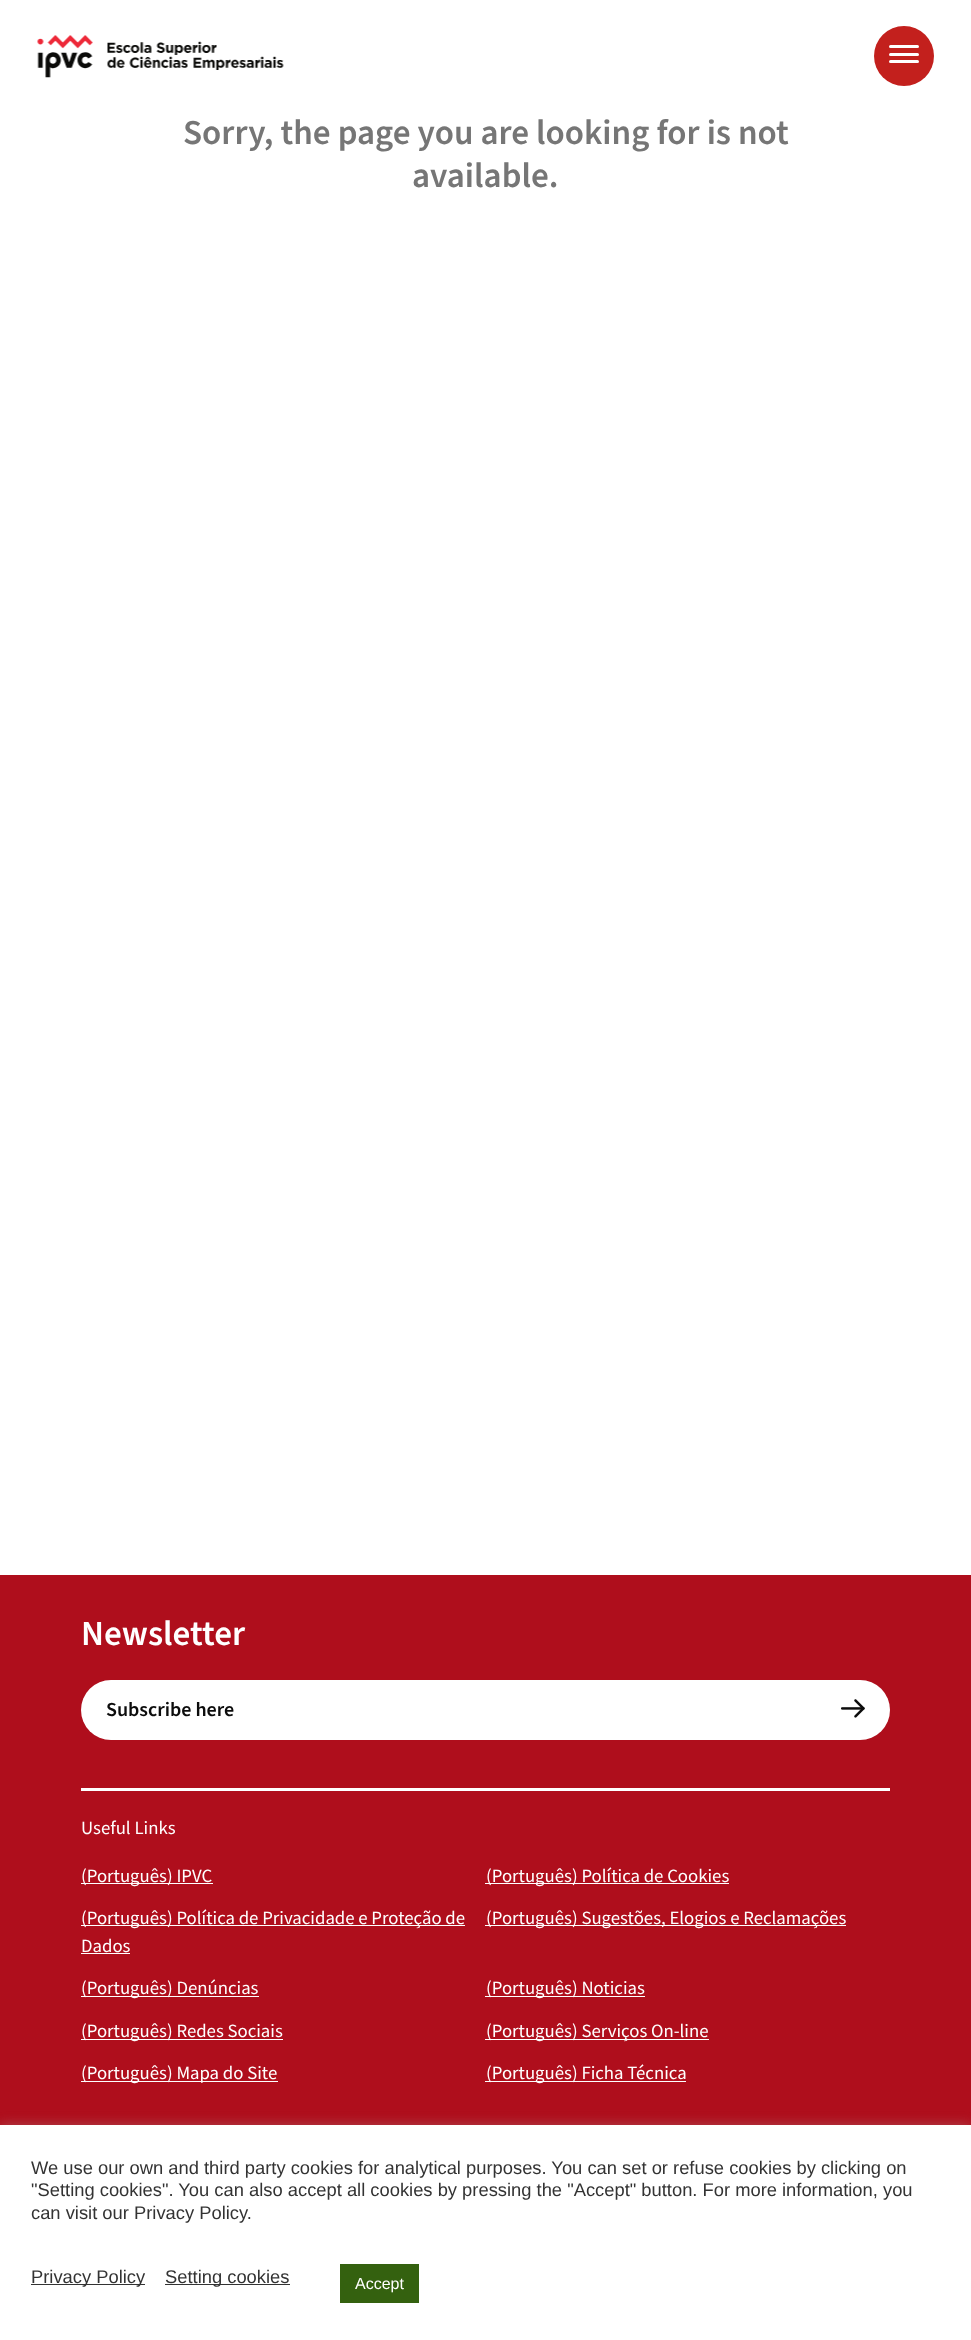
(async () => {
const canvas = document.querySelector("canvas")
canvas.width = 971
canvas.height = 2340
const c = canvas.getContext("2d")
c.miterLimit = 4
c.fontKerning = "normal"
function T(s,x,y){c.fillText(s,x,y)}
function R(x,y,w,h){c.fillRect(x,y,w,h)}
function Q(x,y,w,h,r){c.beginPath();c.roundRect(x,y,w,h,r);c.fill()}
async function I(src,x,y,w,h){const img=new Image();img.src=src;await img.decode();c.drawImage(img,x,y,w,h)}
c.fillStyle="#fff"
R(0,0,971,2340)
await I("1.png",37,35,247,43)
c.fillStyle="#c3201d"
c.beginPath()
c.arc(904,56,30,0,7)
c.fill()
c.fillStyle="#fff"
Q(889,53,30,3,1.5)
Q(889,45,30,3,1.5)
Q(889,60,30,3,1.5)
c.font="600 35px Source Sans Pro"
c.fillStyle="#767676"
T("Sorry, the page you are looking for is not",183,144)
T("available.",412,187)
c.fillStyle="#af0e1c"
R(0,1575,971,550)
c.fillStyle="#fff"
T("Newsletter",81,1645)
Q(81,1680,809,60,30)
c.font="600 20px Source Sans Pro"
c.fillStyle="#0c0c0c"
T("Subscribe here",106,1716)
await I("2.png",841,1699,24,19)
c.fillStyle="#fff"
R(81,1788,809,3)
c.font="18.75px Source Sans Pro"
T("Useful Links",81,1834)
R(81,1883,132,1)
T("(Português) IPVC",81,1882)
R(485,1883,244,1)
T("(Português) Política de Cookies",486,1882)
R(81,1925,384,1)
T("(Português) Política de Privacidade e Proteção de",81,1924)
T("Dados",81,1952)
R(81,1953,49,1)
R(485,1925,361,1)
T("(Português) Sugestões, Elogios e Reclamações",486,1924)
R(81,1996,178,1)
T("(Português) Denúncias",81,1994)
R(485,1996,160,1)
T("(Português) Noticias",486,1994)
R(81,2039,202,1)
T("(Português) Redes Sociais",81,2037)
R(485,2039,224,1)
T("(Português) Serviços On-line",486,2037)
R(81,2081,197,1)
T("(Português) Mapa do Site",81,2079)
R(485,2081,201,1)
T("(Português) Ficha Técnica",486,2079)
c.fillStyle="#acabab4d"
c.filter="blur(6px)"
c.beginPath()
c.rect(0,2124,971,215)
c.fill()
c.filter="none"
c.fillStyle="#fff"
R(0,2125,971,215)
c.font="18.35px Liberation Sans"
c.fillStyle="#333"
T("We use our own and third party cookies for analytical purposes. You can set or refuse cookies by clicking on",31,2174)
T("\"Setting cookies\". You can also accept all cookies by pressing the \"Accept\" button. For more information, you",31,2196)
T("can visit our Privacy Policy.",31,2219)
R(31,2284,114,1)
T("Privacy Policy",31,2283)
R(165,2284,125,1)
T("Setting cookies",165,2283)
c.fillStyle="#34610f"
R(340,2264,79,39)
c.font="16px Liberation Sans"
c.fillStyle="#fff"
T("Accept",355,2289)
})()
